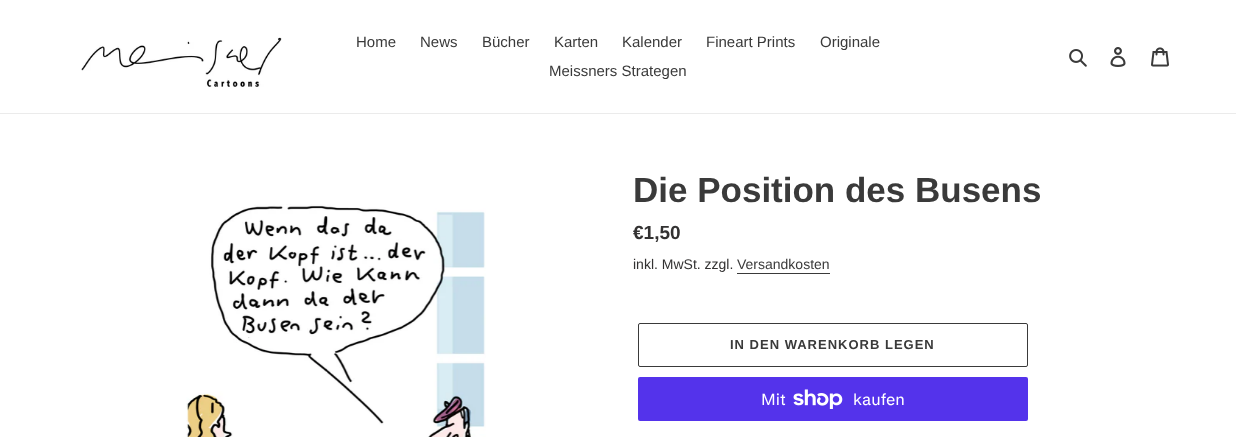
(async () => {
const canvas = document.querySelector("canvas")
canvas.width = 1236
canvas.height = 437
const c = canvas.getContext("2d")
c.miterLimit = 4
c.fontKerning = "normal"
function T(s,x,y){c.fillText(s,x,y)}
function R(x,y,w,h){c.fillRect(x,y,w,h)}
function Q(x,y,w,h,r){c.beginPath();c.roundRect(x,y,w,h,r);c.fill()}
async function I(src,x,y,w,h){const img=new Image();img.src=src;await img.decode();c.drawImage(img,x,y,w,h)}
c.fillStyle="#fff"
R(0,0,1236,437)
c.fillStyle="#ebebeb"
R(0,113,1236,1)
await I("1.png",81,37,201,50)
c.font="15px Liberation Sans"
c.fillStyle="#3a3a3a"
T("Home",356,47)
T("News",420,47)
T("Bücher",482,47)
T("Karten",554,47)
T("Kalender",622,47)
T("Fineart Prints",706,47)
T("Originale",820,47)
T("Meissners Strategen",549,76)
await I("2.png",1069,49,18,18)
await I("3.png",1110,47,16,20)
await I("4.png",1151,47,18,20)
await I("5.png",186,204,300,233)
c.font="bold 35px Liberation Sans"
T("Die Position des Busens",633,202)
c.font="bold 19px Liberation Sans"
c.fillStyle="#333232"
T("€1,50",633,239)
c.font="14px Liberation Sans"
T("inkl. MwSt. zzgl.",633,269)
c.fillStyle="#3a3a3a"
T("Versandkosten",737,269)
R(737,273,93,1)
c.beginPath()
c.roundRect(638.5,323.5,389,43,1.5)
c.strokeStyle="#3a3a3a"
c.stroke()
c.letterSpacing="1px"
c.font="bold 13px Liberation Sans"
T("IN DEN WARENKORB LEGEN",730,349)
c.fillStyle="#5433eb"
Q(638,377,390,44,2)
c.letterSpacing="0px"
c.font="16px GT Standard"
c.fillStyle="#fff"
T("Mit",761,405)
await I("6.png",793,389,50,20)
T("kaufen",853,405)
})()
